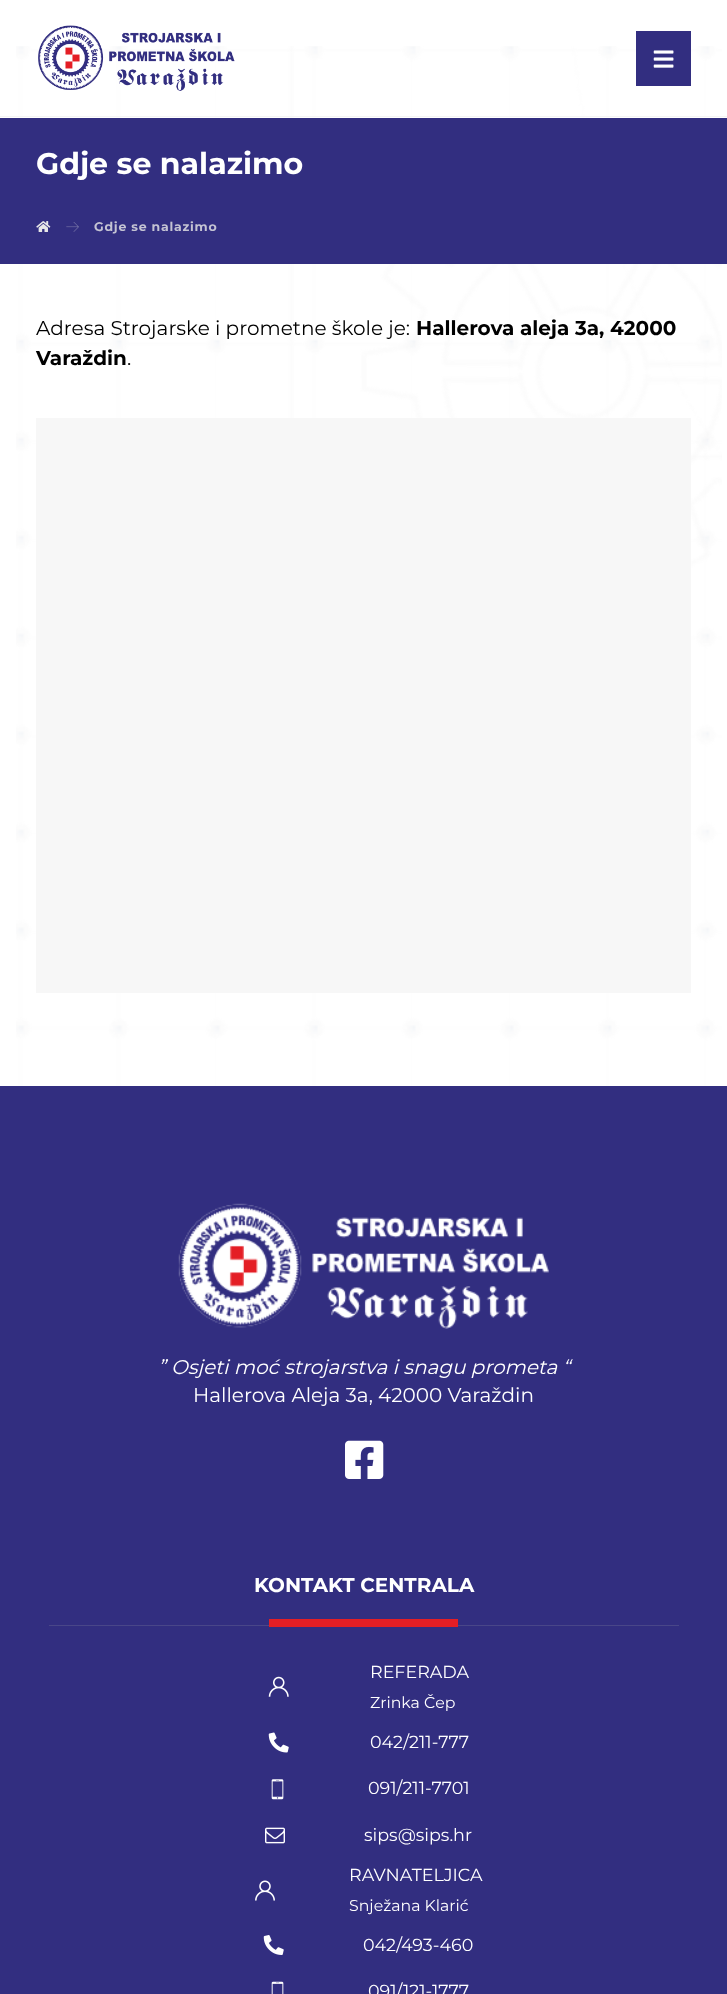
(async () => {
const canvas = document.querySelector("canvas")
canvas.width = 727
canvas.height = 1994
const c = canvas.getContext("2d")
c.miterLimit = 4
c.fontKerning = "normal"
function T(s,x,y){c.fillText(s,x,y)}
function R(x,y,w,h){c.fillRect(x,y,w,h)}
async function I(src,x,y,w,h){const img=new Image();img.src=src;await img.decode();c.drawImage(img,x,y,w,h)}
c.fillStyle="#fff"
R(0,0,727,1994)
await I("1.png",16,46,706,1040)
c.fillStyle="#f4f4f4"
R(0,116,727,1)
await I("2.png",38,25,197,66)
c.fillStyle="#322e80"
R(636,31,55,55)
await I("3.png",653,50,21,18)
R(0,118,727,146)
c.font="bold 30px Montserrat"
c.fillStyle="#fff"
T("Gdje se nalazimo",36,174)
await I("4.png",36,221,15,11)
await I("5.png",66,222,13,10)
c.letterSpacing="0.75px"
c.font="bold 12.5px Montserrat"
c.fillStyle="#c4c3d3"
T("Gdje se nalazimo",94,231)
c.letterSpacing="0px"
c.font="20px Montserrat"
c.fillStyle="#000"
T("Adresa Strojarske i prometne škole je:",36,335)
c.font="bold 20px Montserrat"
T("Hallerova aleja 3a, 42000",416,335)
T("Varaždin",36,365)
c.font="20px Montserrat"
T(".",127,365)
c.fillStyle="#f7f7f7"
R(36,418,655,575)
c.fillStyle="#322e80"
R(0,1086,727,908)
await I("6.png",178,1203,371,126)
c.font="italic 20px Montserrat"
c.fillStyle="#fff"
T("” Osjeti moć strojarstva i snagu prometa “",158,1374)
c.font="20px Montserrat"
T("Hallerova Aleja 3a, 42000 Varaždin",193,1402)
await I("7.png",345,1440,39,39)
c.fillStyle="#494688"
R(49,1625,630,1)
c.font="bold 20px Montserrat"
c.fillStyle="#fff"
T("KONTAKT CENTRALA",254,1592)
c.fillStyle="#e31e25"
R(269,1619,189,8)
await I("8.png",268,1676,21,21)
c.font="17.5px Montserrat"
c.fillStyle="#fff"
T("REFERADA",370,1678)
c.font="15.75px Montserrat"
T("Zrinka Čep",370,1708)
await I("9.png",268,1732,21,21)
c.font="17.5px Montserrat"
T("042/211-777",370,1748)
await I("10.png",271,1779,13,21)
T("091/211-7701",368,1794)
await I("11.png",265,1827,20,17)
T("sips@sips.hr",364,1841)
await I("12.png",255,1880,20,21)
T("RAVNATELJICA",349,1881)
c.font="15.75px Montserrat"
T("Snježana Klarić",349,1911)
await I("13.png",263,1935,21,20)
c.font="17.5px Montserrat"
T("042/493-460",363,1951)
await I("14.png",271,1981,13,13)
T("091/121-1777",368,1997)
})()
